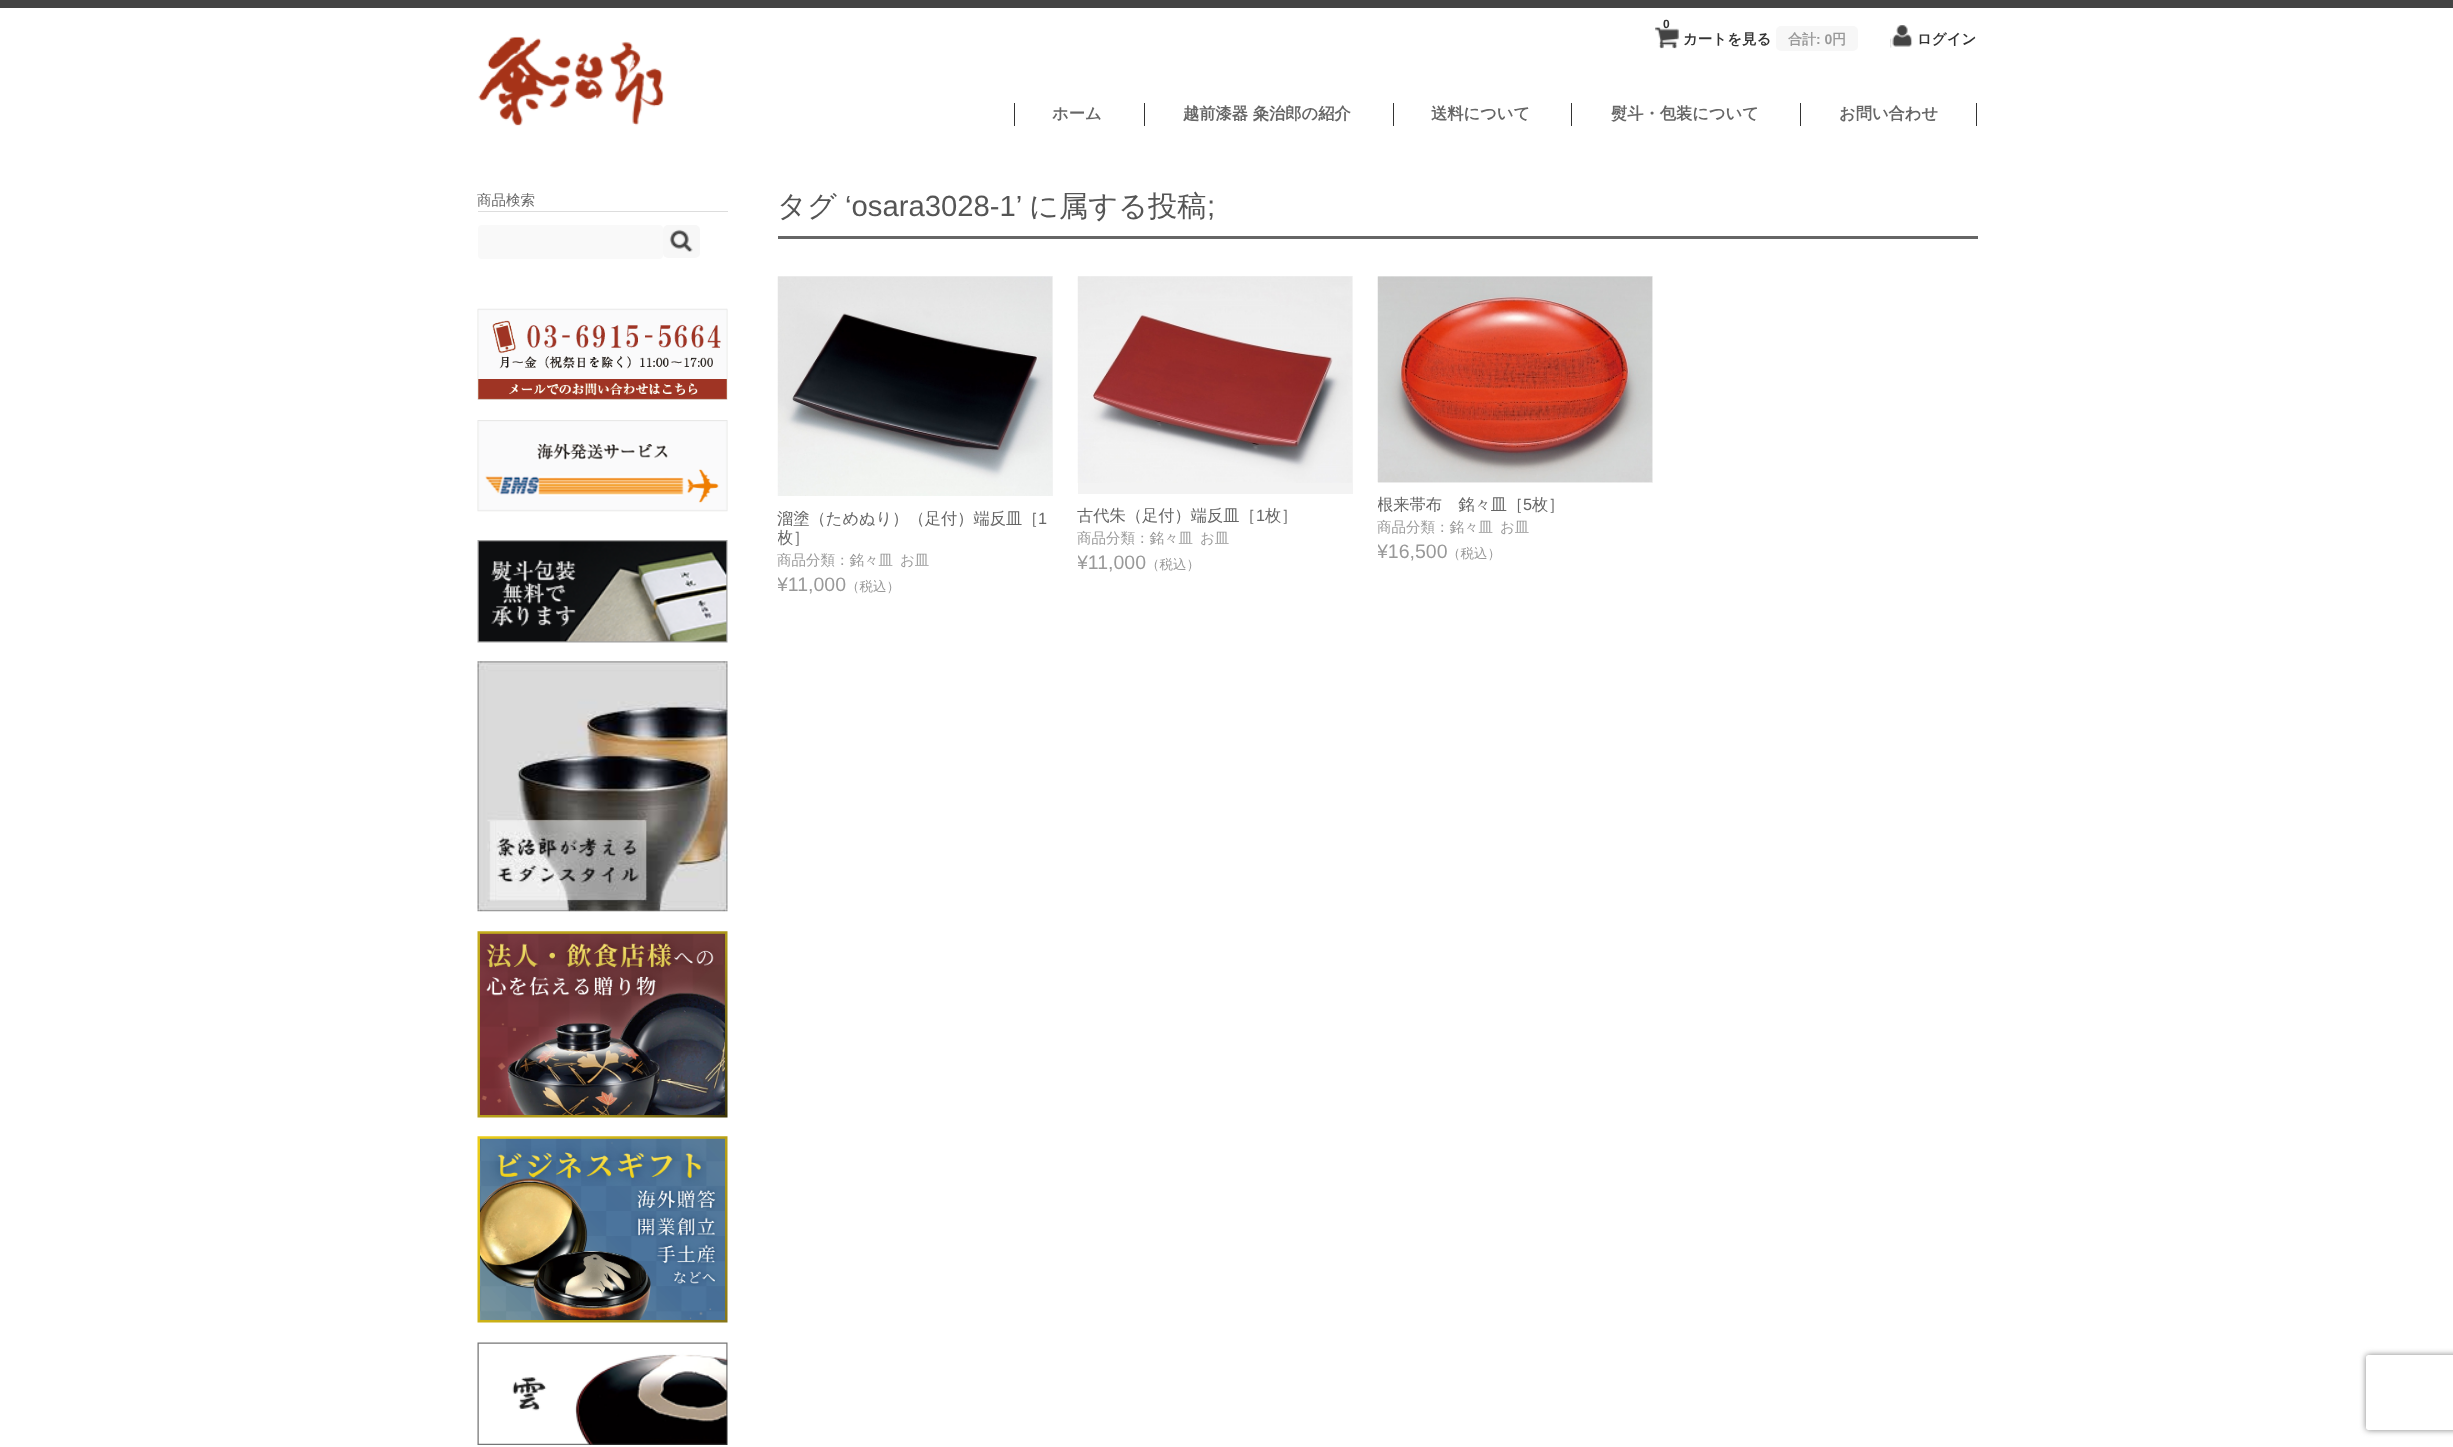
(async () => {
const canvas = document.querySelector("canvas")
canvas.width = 2453
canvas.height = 1447
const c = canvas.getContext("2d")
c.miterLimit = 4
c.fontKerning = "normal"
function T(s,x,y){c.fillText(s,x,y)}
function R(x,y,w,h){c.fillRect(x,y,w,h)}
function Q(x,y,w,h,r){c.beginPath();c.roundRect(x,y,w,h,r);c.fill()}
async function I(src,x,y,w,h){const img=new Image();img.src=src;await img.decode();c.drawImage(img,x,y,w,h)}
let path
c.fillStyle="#fff"
R(0,0,2453,1447)
c.fillStyle="#444"
R(0,0,2453,8)
await I("1.png",1655,27,24,22)
c.font="bold 12px Liberation Sans"
c.fillStyle="#333"
T("0",1663,28)
c.font="bold 14.5px WenQuanYi Zen Hei"
T("カートを見る",1683,44)
c.fillStyle="#f7f7f7"
c.beginPath()
c.roundRect(1776,26,48,25,[5,0,0,5])
c.fill()
c.font="bold 14px WenQuanYi Zen Hei"
c.fillStyle="#999"
T("合計",1788,44)
c.fillStyle="#f7f7f7"
c.beginPath()
c.roundRect(1824,26,34,25,[0,5,5,0])
c.fill()
c.font="bold 14px Liberation Sans"
c.fillStyle="#999"
T(": 0",1816,44)
c.font="bold 14px WenQuanYi Zen Hei"
T("円",1832,44)
await I("2.png",1890,25,23,23)
c.font="bold 14.5px WenQuanYi Zen Hei"
c.fillStyle="#333"
T("ログイン",1917,44)
await I("3.png",478,36,186,90)
R(1976,103,1,23)
R(1014,103,1,23)
c.font="bold 16.25px WenQuanYi Zen Hei"
c.fillStyle="#666"
T("ホーム",1052,119)
c.fillStyle="#333"
R(1144,103,1,23)
c.fillStyle="#666"
T("越前漆器 粂治郎の紹介",1183,119)
c.fillStyle="#333"
R(1393,103,1,23)
c.fillStyle="#666"
T("送料について",1431,119)
c.fillStyle="#333"
R(1571,103,1,23)
c.fillStyle="#666"
T("熨斗・包装について",1611,119)
c.fillStyle="#333"
R(1800,103,1,23)
c.fillStyle="#666"
T("お問い合わせ",1839,119)
c.fillStyle="#ddd"
R(478,211,250,1)
c.font="500 14.5px WenQuanYi Zen Hei"
c.fillStyle="#666"
T("商品検索",477,205)
c.fillStyle="#f9f9f9"
Q(478,225,185,34,4)
c.fillStyle="#f7f7f7"
Q(663,225,37,33,5)
await I("4.png",669,229,24,23)
await I("5.png",477,308,251,92)
await I("6.png",477,420,251,92)
await I("7.png",477,540,251,103)
await I("8.png",477,661,251,251)
await I("9.png",477,931,251,187)
await I("10.png",477,1136,251,187)
await I("11.png",477,1342,251,103)
c.fillStyle="#666"
R(778,236,1200,3)
c.font="500 29.25px WenQuanYi Zen Hei"
c.fillStyle="#555"
T("タグ",777,216)
c.font="29.25px Liberation Sans"
T("‘osara3028-1’",845,216)
c.font="500 29.25px WenQuanYi Zen Hei"
T("に属する投稿",1029,216)
c.font="29.25px Liberation Sans"
T(";",1207,216)
c.fillStyle="#f3f3f3"
R(778,276,275,220)
await I("12.png",777,276,276,220)
c.font="500 16.25px WenQuanYi Zen Hei"
c.fillStyle="#666"
T("溜塗（ためぬり）（足付）端反皿［",777,524)
c.font="16.25px Liberation Sans"
T("1",1038,524)
c.save()
c.beginPath()
c.rect(778,276,275,323)
c.clip()
c.font="500 16.25px WenQuanYi Zen Hei"
T("枚］",777,543)
c.restore()
c.font="500 14.5px WenQuanYi Zen Hei"
c.fillStyle="#999"
T("商品分類：銘々皿",777,565)
T("お皿",900,565)
c.save()
c.beginPath()
c.rect(778,276,275,323)
c.clip()
c.font="19.5px Liberation Sans"
T("¥11,000",777,591)
c.restore()
c.font="500 13.5px WenQuanYi Zen Hei"
T("（税込）",846,591)
c.fillStyle="#f3f3f3"
R(1078,276,275,218)
await I("13.png",1077,276,275,207)
c.font="500 16.25px WenQuanYi Zen Hei"
c.fillStyle="#666"
T("古代朱（足付）端反皿［",1077,521)
c.font="16.25px Liberation Sans"
T("1",1256,521)
c.font="500 16.25px WenQuanYi Zen Hei"
T("枚］",1265,521)
c.font="500 14.5px WenQuanYi Zen Hei"
c.fillStyle="#999"
T("商品分類：銘々皿",1077,543)
T("お皿",1200,543)
c.save()
c.beginPath()
c.rect(1078,276,275,302)
c.clip()
c.font="19.5px Liberation Sans"
T("¥11,000",1077,569)
c.restore()
c.font="500 13.5px WenQuanYi Zen Hei"
T("（税込）",1146,569)
c.fillStyle="#f3f3f3"
R(1378,276,275,207)
await I("14.png",1377,276,276,207)
c.save()
c.beginPath()
c.rect(1378,276,275,290)
c.clip()
c.font="500 16.25px WenQuanYi Zen Hei"
c.fillStyle="#666"
T("根来帯布　銘々皿［",1377,510)
c.restore()
c.font="16.25px Liberation Sans"
c.fillStyle="#666"
T("5",1523,510)
c.font="500 16.25px WenQuanYi Zen Hei"
T("枚］",1532,510)
c.font="500 14.5px WenQuanYi Zen Hei"
c.fillStyle="#999"
T("商品分類：銘々皿",1377,532)
T("お皿",1500,532)
c.save()
c.beginPath()
c.rect(1378,276,275,290)
c.clip()
c.font="19.5px Liberation Sans"
T("¥16,500",1377,558)
c.restore()
c.font="500 13.5px WenQuanYi Zen Hei"
T("（税込）",1447,558)
c.save()
path = new Path2D("M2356 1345h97v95h-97zm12.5 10h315c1.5 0 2.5 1 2.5 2.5v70c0 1.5-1 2.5-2.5 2.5h-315c-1.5 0-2.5-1-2.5-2.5v-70c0-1.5 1-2.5 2.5-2.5z")
c.clip(path,"evenodd")
c.fillStyle="#808080"
c.filter="blur(3px)"
c.beginPath()
c.roundRect(2366,1355,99,75,2.5)
c.fill()
c.filter="none"
c.restore()
})()
